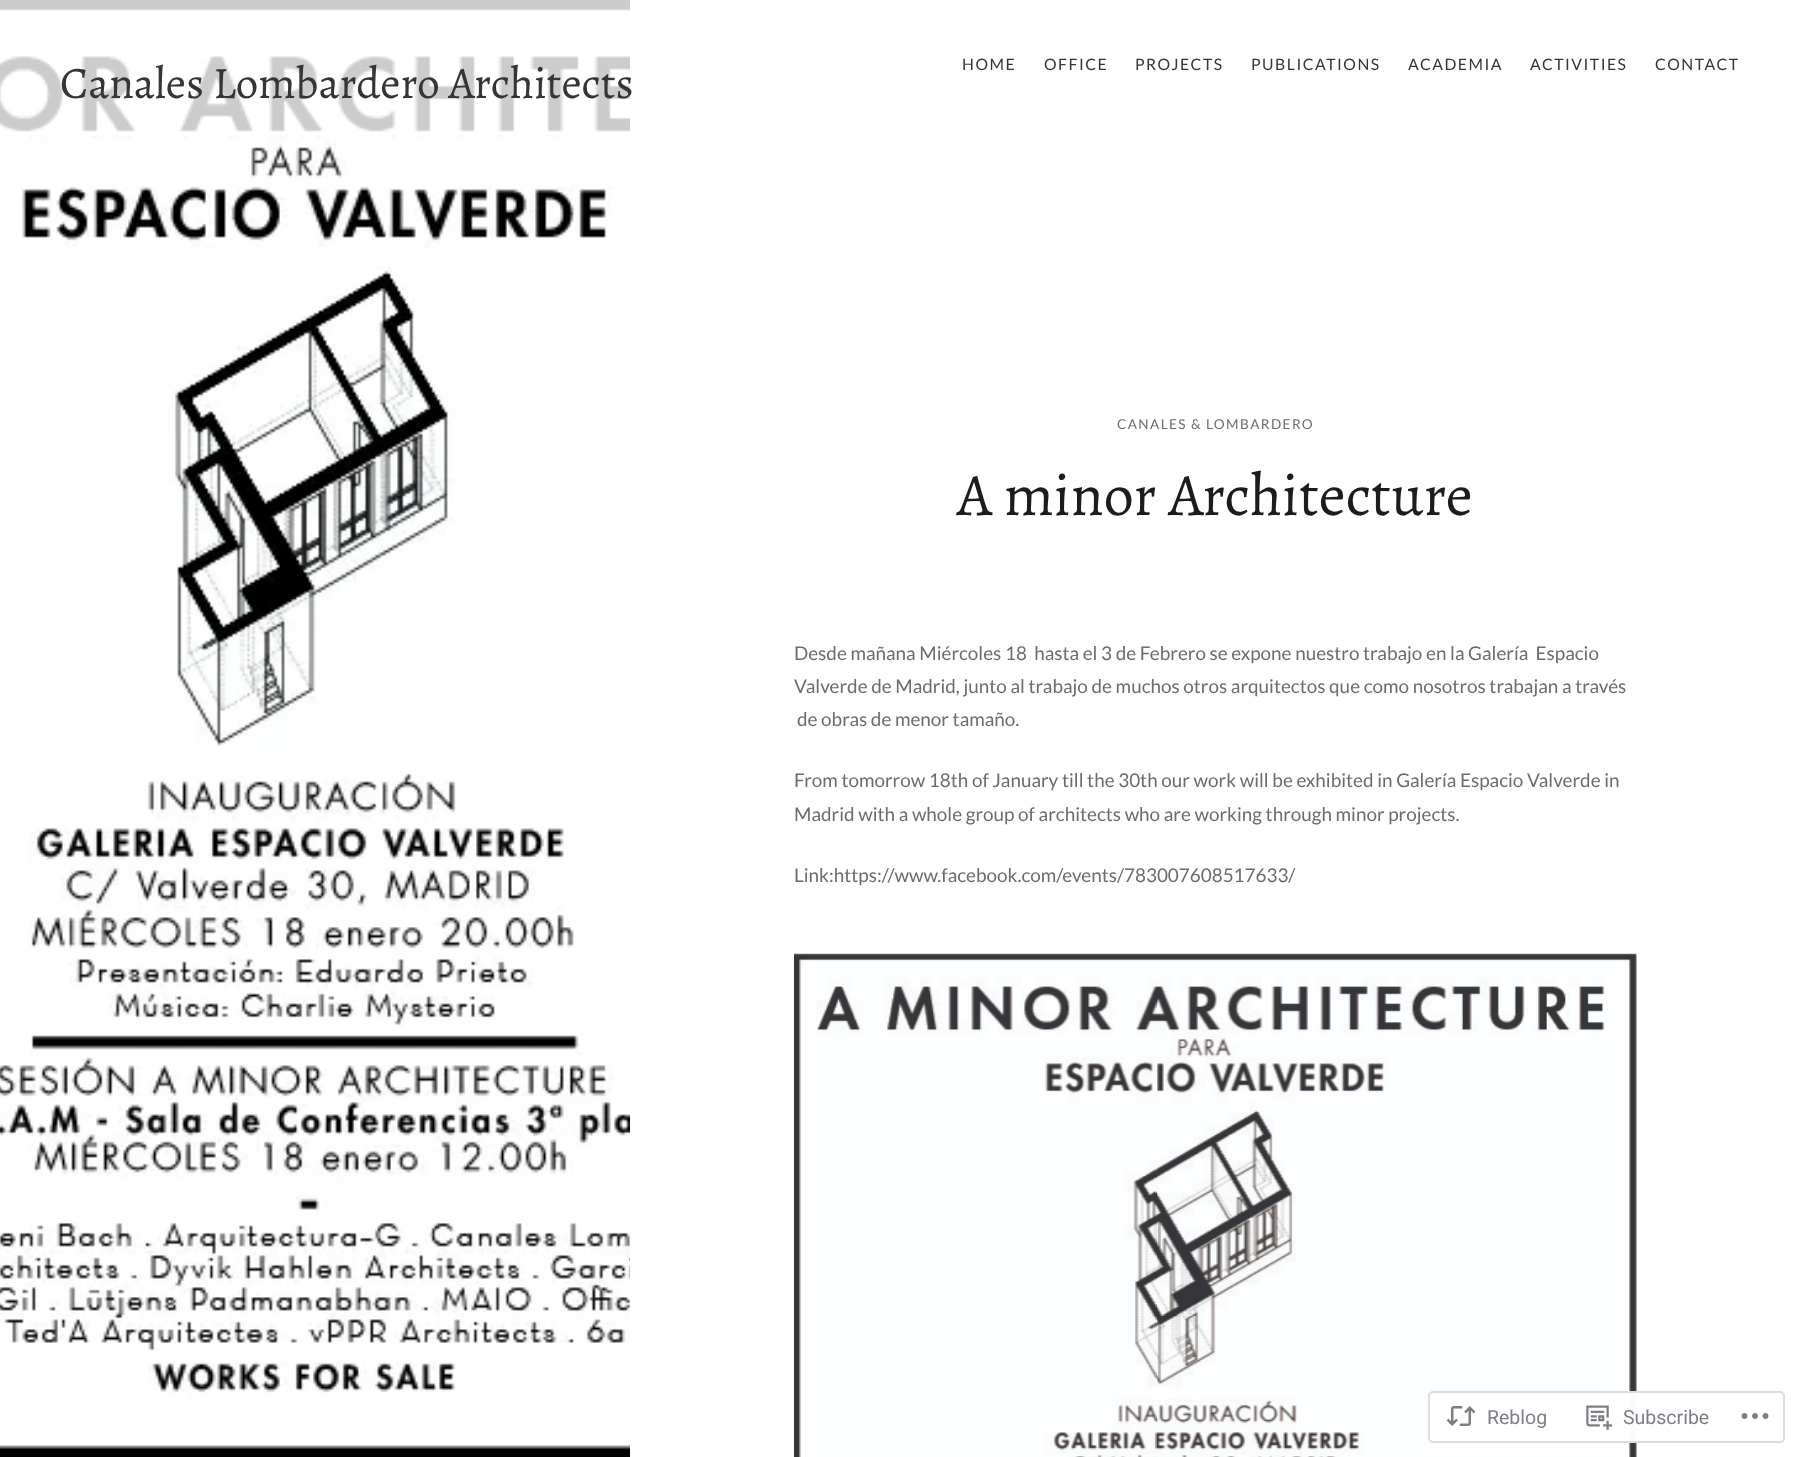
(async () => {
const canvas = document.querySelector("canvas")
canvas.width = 1799
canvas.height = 1457
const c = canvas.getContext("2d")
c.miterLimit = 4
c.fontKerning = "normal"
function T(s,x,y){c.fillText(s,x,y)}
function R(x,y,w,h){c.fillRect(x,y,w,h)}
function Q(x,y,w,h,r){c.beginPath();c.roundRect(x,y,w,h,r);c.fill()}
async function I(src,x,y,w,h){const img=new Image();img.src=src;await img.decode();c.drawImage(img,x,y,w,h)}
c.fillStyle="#fff"
R(0,0,1799,1457)
await I("1.png",0,0,630,1457)
c.fillStyle="#ffffffcc"
R(0,0,630,135)
c.letterSpacing="1.5px"
c.font="15.75px Lato"
c.fillStyle="#353535"
T("HOME",962,70)
T("OFFICE",1044,70)
T("PROJECTS",1135,70)
T("PUBLICATIONS",1251,70)
T("ACADEMIA",1408,70)
T("ACTIVITIES",1530,70)
T("CONTACT",1655,70)
c.letterSpacing="0px"
c.font="45px Alegreya"
T("Canales Lombardero Architects",60,98)
c.letterSpacing="1.4px"
c.font="13.6px Lato"
c.fillStyle="#6a6c6e"
T("CANALES & LOMBARDERO",1117,429)
c.letterSpacing="0px"
c.font="60px Alegreya"
c.fillStyle="#1a1c1e"
T("A minor Architecture",957,515)
c.font="18.9px Lato"
c.fillStyle="#6a6c6e"
T("Desde mañana Miércoles 18  hasta el 3 de Febrero se expone nuestro trabajo en la Galería  Espacio",794,660)
T("Valverde de Madrid, junto al trabajo de muchos otros arquitectos que como nosotros trabajan a través",794,693)
T("de obras de menor tamaño.",797,726)
T("From tomorrow 18th of January till the 30th our work will be exhibited in Galería Espacio Valverde in",794,787)
T("Madrid with a whole group of architects who are working through minor projects.",794,821)
T("Link:https://www.facebook.com/events/783007608517633/",794,882)
await I("2.png",794,953,843,504)
c.fillStyle="#fffffffa"
Q(1428,1391,357,52,5)
c.beginPath()
c.roundRect(1429,1392,355,50,4)
c.strokeStyle="#dcdcdefa"
c.lineWidth=2
c.stroke()
await I("3.png",1446,1406,30,20)
c.font="19.5px Roboto"
c.fillStyle="#7b7f85"
T("Reblog",1487,1424)
await I("4.png",1586,1405,27,25)
T("Subscribe",1623,1424)
await I("5.png",1741,1413,28,6)
})()
